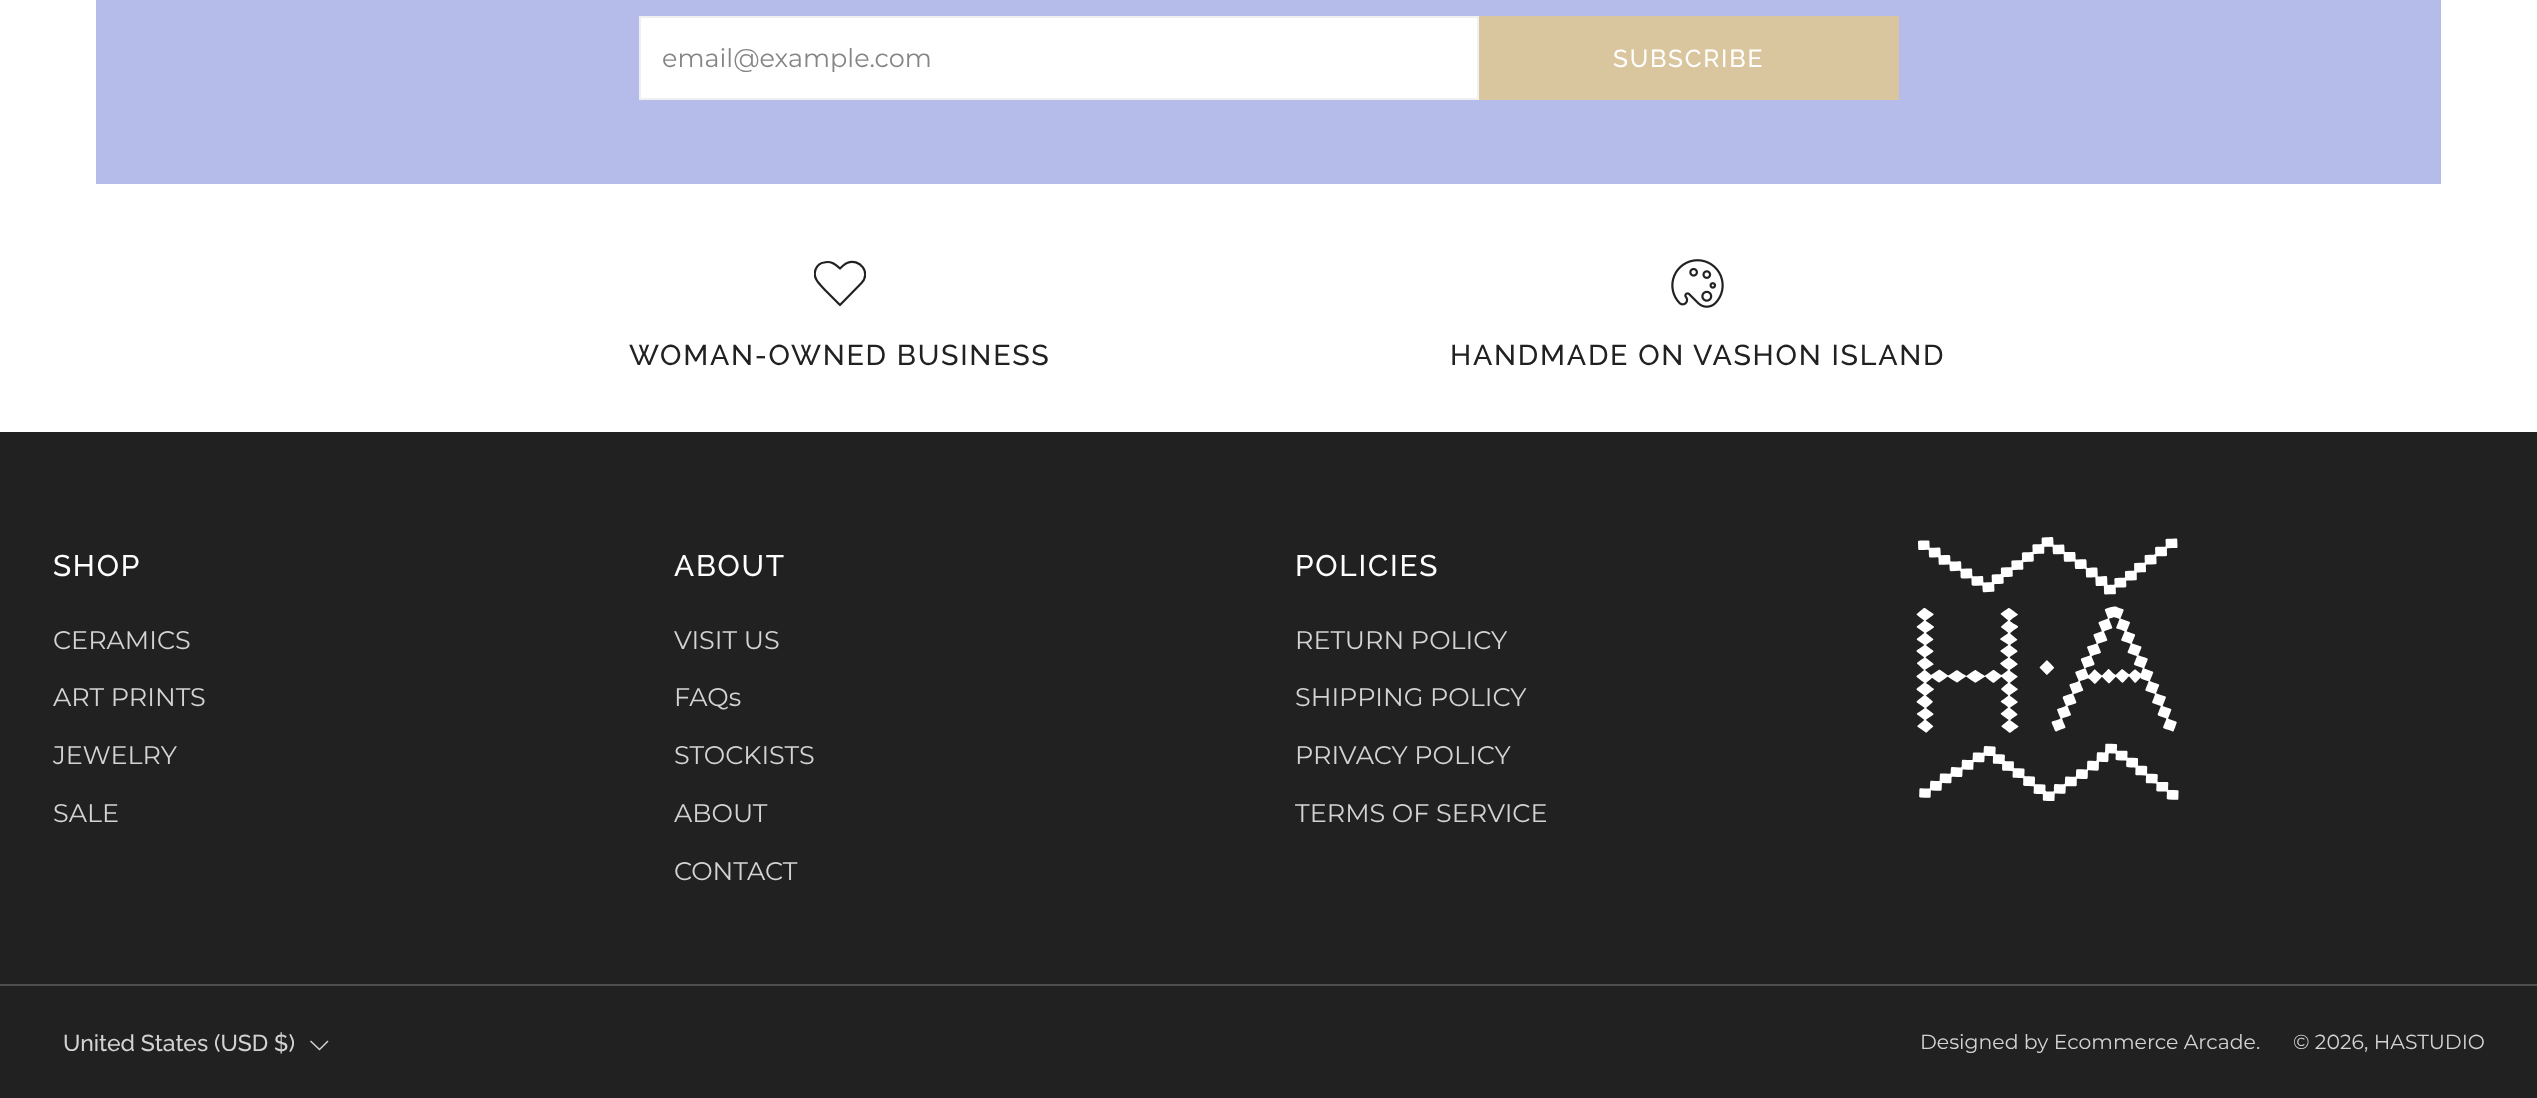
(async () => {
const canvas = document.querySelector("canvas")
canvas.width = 2537
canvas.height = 1098
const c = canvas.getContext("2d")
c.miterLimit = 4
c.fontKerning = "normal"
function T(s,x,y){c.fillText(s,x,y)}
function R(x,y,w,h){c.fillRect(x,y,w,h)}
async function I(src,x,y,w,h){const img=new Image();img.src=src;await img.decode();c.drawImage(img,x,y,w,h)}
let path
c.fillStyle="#fff"
R(0,0,2537,1098)
c.fillStyle="#b6bcea"
R(96,0,2345,184)
c.fillStyle="#fff"
c.beginPath()
c.rect(640,17,838,82)
c.fill()
c.strokeStyle="#f0f0f0"
c.lineWidth=2
c.stroke()
c.font="25.5px Montserrat"
c.fillStyle="#858585"
T("email@example.com",662,67)
c.fillStyle="#dac69e"
R(1479,16,420,84)
c.letterSpacing="1.75px"
c.font="500 24.5px Raleway"
c.fillStyle="#fff"
T("SUBSCRIBE",1613,67)
c.save()
c.beginPath()
c.rect(814,257,52,53)
c.clip()
path = new Path2D("M840 305l-14.5-14.5c-5.5-6-14-12.5-9.5-22c1.5-3 4.5-5.5 8-6c7-2 11.5 2 16 6c2-2 4.5-4.5 7-5.5c12.5-5.5 24.5 10 14.5 20z")
c.strokeStyle="#212121"
c.lineWidth=2.2
c.lineCap="round"
c.lineJoin="round"
c.stroke(path)
c.restore()
c.font="500 28.6px Raleway"
c.fillStyle="#212121"
T("WOMAN-OWNED BUSINESS",629,365)
await I("1.png",1671,259,53,49)
T("HANDMADE ON VASHON ISLAND",1450,365)
R(0,432,2537,666)
c.font="500 29.75px Raleway"
c.fillStyle="#fff"
T("SHOP",53,576)
c.letterSpacing="0px"
c.font="25.5px Montserrat"
c.fillStyle="#d3d3d3"
T("CERAMICS",53,649)
T("ART PRINTS",53,706)
T("JEWELRY",53,764)
T("SALE",53,822)
c.letterSpacing="1.75px"
c.font="500 29.75px Raleway"
c.fillStyle="#fff"
T("ABOUT",674,576)
c.letterSpacing="0px"
c.font="25.5px Montserrat"
c.fillStyle="#d3d3d3"
T("VISIT US",674,649)
T("FAQs",674,706)
T("STOCKISTS",674,764)
T("ABOUT",674,822)
T("CONTACT",674,880)
c.letterSpacing="1.75px"
c.font="500 29.75px Raleway"
c.fillStyle="#fff"
T("POLICIES",1295,576)
c.letterSpacing="0px"
c.font="25.5px Montserrat"
c.fillStyle="#d3d3d3"
T("RETURN POLICY",1295,649)
T("SHIPPING POLICY",1295,706)
T("PRIVACY POLICY",1295,764)
T("TERMS OF SERVICE",1295,822)
await I("2.png",1916,537,263,264)
c.fillStyle="#4d4d4d"
R(0,984,2537,2)
c.font="500 23px Raleway"
c.fillStyle="#d3d3d3"
T("United States (USD $)",63,1051)
path = new Path2D("M311 1040.5l-1 1l9.5 9l9-9l-1-1l-8 8z")
c.fill(path)
c.font="20.4px Montserrat"
T("Designed by Ecommerce Arcade.",1920,1049)
T("© 2026, HASTUDIO",2293,1049)
})()
